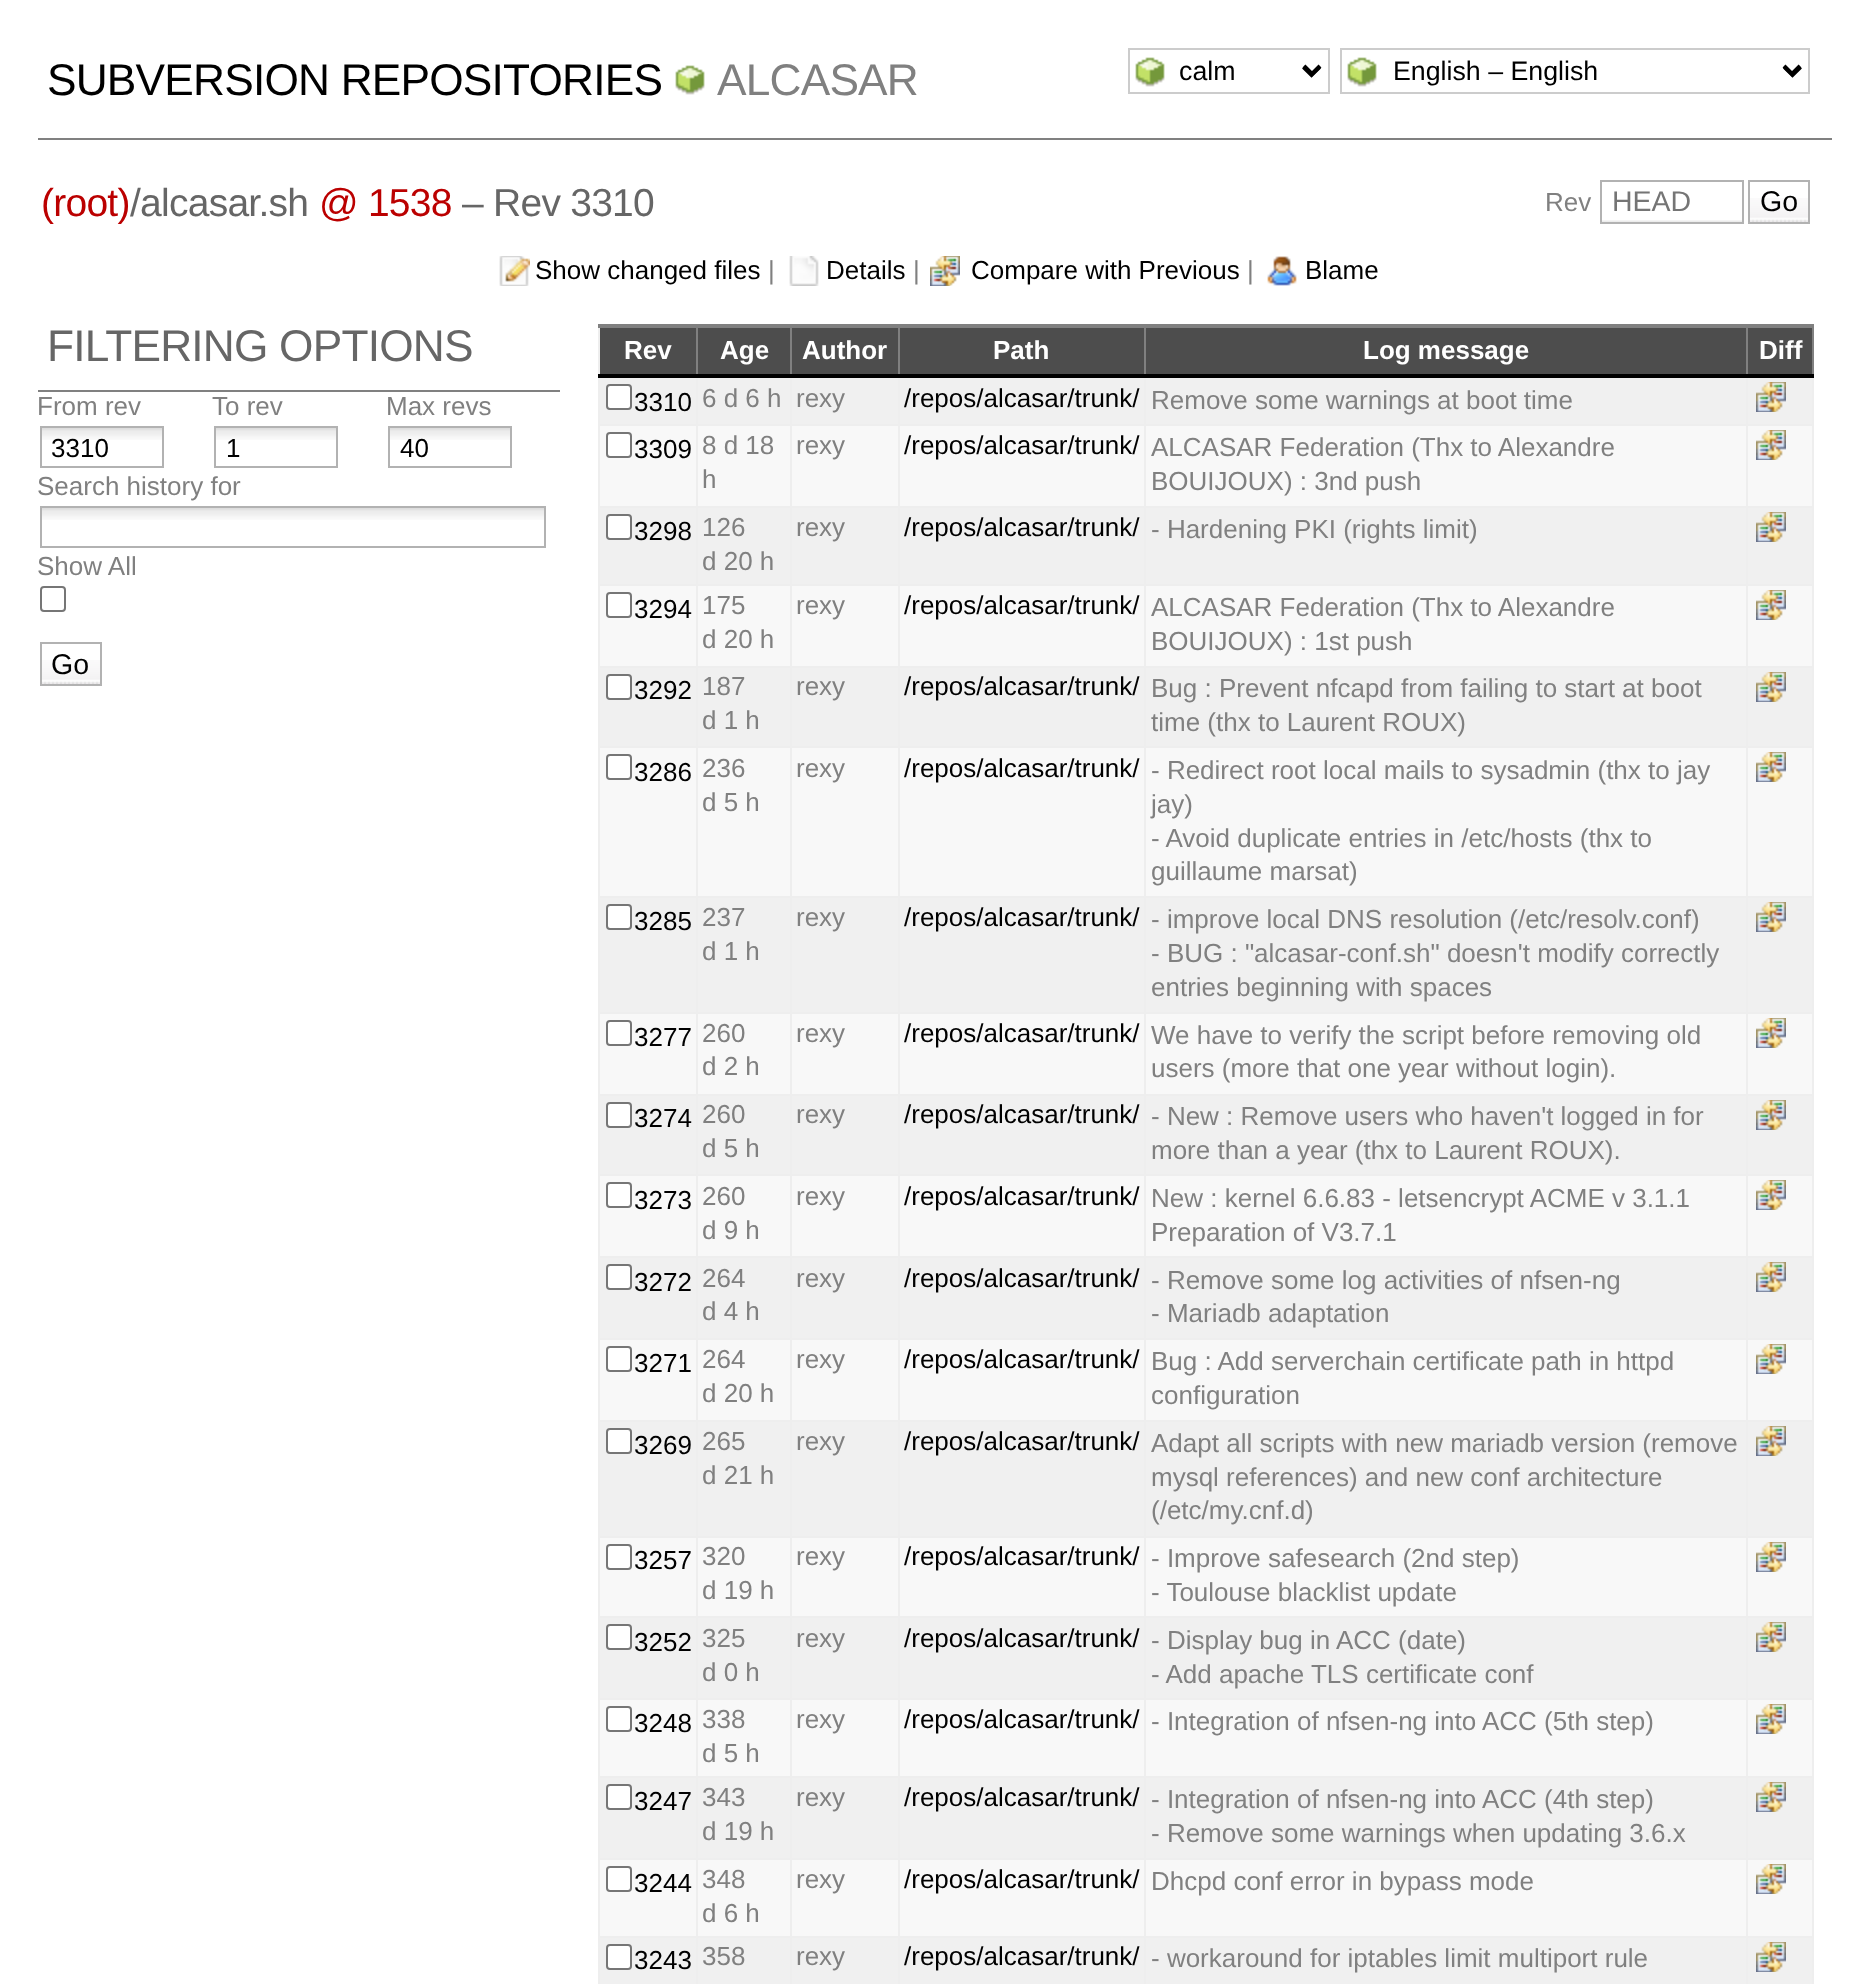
(async () => {
const canvas = document.querySelector("canvas")
canvas.width = 1870
canvas.height = 1984
const c = canvas.getContext("2d")
c.miterLimit = 4
c.fontKerning = "normal"
function T(s,x,y){c.fillText(s,x,y)}
function R(x,y,w,h){c.fillRect(x,y,w,h)}
async function I(src,x,y,w,h){const img=new Image();img.src=src;await img.decode();c.drawImage(img,x,y,w,h)}
let path
c.fillStyle="#fff"
R(0,0,1870,1984)
c.fillStyle="#808080"
R(38,138,1794,2)
c.letterSpacing="-0.8px"
c.font="44.25px Liberation Sans"
c.fillStyle="#000"
T("SUBVERSION REPOSITORIES",47,95)
await I("1.png",675,65,30,30)
c.fillStyle="#808080"
T("ALCASAR",717,95)
await I("2.png",1135,57,187,30)
c.strokeStyle="#ccc"
c.lineWidth=2
c.strokeRect(1129,49,200,44)
path = new Path2D("M1303.5 67l8 8l8-8")
c.strokeStyle="#000"
c.lineWidth=4
c.stroke(path)
c.letterSpacing="0px"
c.font="26.75px Liberation Sans"
c.fillStyle="#000"
T("calm",1179,80)
await I("3.png",1347,57,455,30)
c.strokeStyle="#ccc"
c.lineWidth=2
c.strokeRect(1341,49,468,44)
path = new Path2D("M1784.5 67l8 8l8-8")
c.strokeStyle="#000"
c.lineWidth=4
c.stroke(path)
T("English – English",1393,80)
c.letterSpacing="-0.75px"
c.font="39px Liberation Sans"
c.fillStyle="#b00"
T("(root)",41,216)
c.fillStyle="#666"
T("/alcasar.sh",130,216)
c.fillStyle="#b00"
T("@ 1538",319,216)
c.fillStyle="#666"
T("– Rev 3310",462,216)
c.letterSpacing="0px"
c.font="26px Liberation Sans"
c.fillStyle="#808080"
T("Rev",1545,211)
await I("4.png",1602,220,140,2)
c.strokeStyle="#b2b2b2"
c.lineWidth=2
c.strokeRect(1601,181,142,42)
c.font="28.5px Liberation Sans"
c.fillStyle="#757575"
T("HEAD",1612,211)
await I("5.png",1750,198,58,24)
c.strokeRect(1749,181,60,42)
c.fillStyle="#000"
T("Go",1760,211)
await I("6.png",499,256,31,30)
c.font="26px Liberation Sans"
T("Show changed files",535,279)
c.fillStyle="#808080"
T("|",768,279)
await I("7.png",789,256,30,30)
c.fillStyle="#000"
T("Details",826,279)
c.fillStyle="#808080"
T("|",913,279)
await I("8.png",930,256,30,30)
c.fillStyle="#000"
T("Compare with Previous",971,279)
c.fillStyle="#808080"
T("|",1247,279)
await I("9.png",1267,256,30,30)
c.fillStyle="#000"
T("Blame",1305,279)
c.fillStyle="#808080"
R(38,390,522,2)
c.letterSpacing="-0.8px"
c.font="44.25px Liberation Sans"
c.fillStyle="#666"
T("FILTERING OPTIONS",47,361)
c.letterSpacing="0px"
c.font="26px Liberation Sans"
c.fillStyle="#808080"
T("From rev",37,415)
T("To rev",212,415)
T("Max revs",386,415)
await I("10.png",42,428,120,12)
c.strokeRect(41,427,122,40)
c.fillStyle="#000"
T("3310",51,457)
await I("10.png",216,428,120,12)
c.strokeRect(215,427,122,40)
T("1",226,457)
await I("10.png",390,428,120,12)
c.strokeRect(389,427,122,40)
T("40",400,457)
c.fillStyle="#808080"
T("Search history for",37,495)
await I("11.png",42,508,502,12)
c.strokeRect(41,507,504,40)
T("Show All",37,575)
c.beginPath()
c.roundRect(41,587,24,24,3)
c.strokeStyle="#767676"
c.stroke()
await I("5.png",42,660,58,24)
c.strokeStyle="#b2b2b2"
c.strokeRect(41,643,60,42)
c.font="28.5px Liberation Sans"
c.fillStyle="#000"
T("Go",51,674)
c.fillStyle="#4d4d4d"
R(600,328,1212,46)
c.fillStyle="#eee"
R(1746,424,68,2)
R(1746,506,68,2)
R(1746,584,68,2)
R(1746,666,68,2)
R(1746,746,68,2)
R(1746,896,68,2)
R(1746,1012,68,2)
R(1746,1094,68,2)
R(1746,1174,68,2)
R(1746,1256,68,2)
R(1746,1338,68,2)
R(1746,1420,68,2)
R(1746,1536,68,2)
R(1746,1616,68,2)
R(1746,1698,68,2)
R(1746,1776,68,2)
R(1746,1858,68,2)
R(1746,1936,68,2)
R(1746,1936,2,48)
R(1144,1936,604,2)
R(1746,1858,2,80)
R(1144,1858,604,2)
R(1746,1776,2,84)
R(1144,1776,604,2)
R(1746,1698,2,80)
R(1144,1698,604,2)
R(1746,1616,2,84)
R(1144,1616,604,2)
R(1746,1536,2,82)
R(1144,1536,604,2)
R(1746,1420,2,118)
R(1144,1420,604,2)
R(1746,1338,2,84)
R(1144,1338,604,2)
R(1746,1256,2,84)
R(1144,1256,604,2)
R(1746,1174,2,84)
R(1144,1174,604,2)
R(1746,1094,2,82)
R(1144,1094,604,2)
R(1746,1012,2,84)
R(1144,1012,604,2)
R(1746,896,2,118)
R(1144,896,604,2)
R(1746,746,2,152)
R(1144,746,604,2)
R(1746,666,2,82)
R(1144,666,604,2)
R(1746,584,2,84)
R(1144,584,604,2)
R(1746,506,2,80)
R(1144,506,604,2)
R(1746,424,2,84)
R(1144,424,604,2)
R(1144,1936,2,48)
R(898,1936,248,2)
R(1144,1858,2,80)
R(898,1858,248,2)
R(1144,1776,2,84)
R(898,1776,248,2)
R(1144,1698,2,80)
R(898,1698,248,2)
R(1144,1616,2,84)
R(898,1616,248,2)
R(1144,1536,2,82)
R(898,1536,248,2)
R(1144,1420,2,118)
R(898,1420,248,2)
R(1144,1338,2,84)
R(898,1338,248,2)
R(1144,1256,2,84)
R(898,1256,248,2)
R(1144,1174,2,84)
R(898,1174,248,2)
R(1144,1094,2,82)
R(898,1094,248,2)
R(1144,1012,2,84)
R(898,1012,248,2)
R(1144,896,2,118)
R(898,896,248,2)
R(1144,746,2,152)
R(898,746,248,2)
R(1144,666,2,82)
R(898,666,248,2)
R(1144,584,2,84)
R(898,584,248,2)
R(1144,506,2,80)
R(898,506,248,2)
R(1144,424,2,84)
R(898,424,248,2)
R(898,1936,2,48)
R(790,1936,110,2)
R(898,1858,2,80)
R(790,1858,110,2)
R(898,1776,2,84)
R(790,1776,110,2)
R(898,1698,2,80)
R(790,1698,110,2)
R(898,1616,2,84)
R(790,1616,110,2)
R(898,1536,2,82)
R(790,1536,110,2)
R(898,1420,2,118)
R(790,1420,110,2)
R(898,1338,2,84)
R(790,1338,110,2)
R(898,1256,2,84)
R(790,1256,110,2)
R(898,1174,2,84)
R(790,1174,110,2)
R(898,1094,2,82)
R(790,1094,110,2)
R(898,1012,2,84)
R(790,1012,110,2)
R(898,896,2,118)
R(790,896,110,2)
R(898,746,2,152)
R(790,746,110,2)
R(898,666,2,82)
R(790,666,110,2)
R(898,584,2,84)
R(790,584,110,2)
R(898,506,2,80)
R(790,506,110,2)
R(898,424,2,84)
R(790,424,110,2)
R(790,1936,2,48)
R(696,1936,96,2)
R(790,1858,2,80)
R(696,1858,96,2)
R(790,1776,2,84)
R(696,1776,96,2)
R(790,1698,2,80)
R(696,1698,96,2)
R(790,1616,2,84)
R(696,1616,96,2)
R(790,1536,2,82)
R(696,1536,96,2)
R(790,1420,2,118)
R(696,1420,96,2)
R(790,1338,2,84)
R(696,1338,96,2)
R(790,1256,2,84)
R(696,1256,96,2)
R(790,1174,2,84)
R(696,1174,96,2)
R(790,1094,2,82)
R(696,1094,96,2)
R(790,1012,2,84)
R(696,1012,96,2)
R(790,896,2,118)
R(696,896,96,2)
R(790,746,2,152)
R(696,746,96,2)
R(790,666,2,82)
R(696,666,96,2)
R(790,584,2,84)
R(696,584,96,2)
R(790,506,2,80)
R(696,506,96,2)
R(790,424,2,84)
R(696,424,96,2)
R(696,1936,2,48)
R(598,1936,100,2)
R(696,1858,2,80)
R(598,1858,100,2)
R(696,1776,2,84)
R(598,1776,100,2)
R(696,1698,2,80)
R(598,1698,100,2)
R(696,1616,2,84)
R(598,1616,100,2)
R(696,1536,2,82)
R(598,1536,100,2)
R(696,1420,2,118)
R(598,1420,100,2)
R(696,1338,2,84)
R(598,1338,100,2)
R(696,1256,2,84)
R(598,1256,100,2)
R(696,1174,2,84)
R(598,1174,100,2)
R(696,1094,2,82)
R(598,1094,100,2)
R(696,1012,2,84)
R(598,1012,100,2)
R(696,896,2,118)
R(598,896,100,2)
R(696,746,2,152)
R(598,746,100,2)
R(696,666,2,82)
R(598,666,100,2)
R(696,584,2,84)
R(598,584,100,2)
R(696,506,2,80)
R(598,506,100,2)
R(696,424,2,84)
R(598,424,100,2)
R(696,376,2,50)
c.fillStyle="#808080"
R(696,326,2,52)
c.font="bold 26px Liberation Sans"
c.fillStyle="#fff"
T("Rev",624,359)
c.fillStyle="#eee"
R(790,376,2,50)
c.fillStyle="#808080"
R(790,326,2,52)
c.fillStyle="#fff"
T("Age",720,359)
c.fillStyle="#eee"
R(898,376,2,50)
c.fillStyle="#808080"
R(898,326,2,52)
c.fillStyle="#fff"
T("Author",802,359)
c.fillStyle="#eee"
R(1144,376,2,50)
c.fillStyle="#808080"
R(1144,326,2,52)
c.fillStyle="#fff"
T("Path",993,359)
c.fillStyle="#eee"
R(1746,376,2,50)
c.fillStyle="#808080"
R(1746,326,2,52)
c.fillStyle="#fff"
T("Log message",1363,359)
c.fillStyle="#eee"
R(1812,1936,2,48)
R(1812,1858,2,80)
R(1812,1776,2,84)
R(1812,1698,2,80)
R(1812,1616,2,84)
R(1812,1536,2,82)
R(1812,1420,2,118)
R(1812,1338,2,84)
R(1812,1256,2,84)
R(1812,1174,2,84)
R(1812,1094,2,82)
R(1812,1012,2,84)
R(1812,896,2,118)
R(1812,746,2,152)
R(1812,666,2,82)
R(1812,584,2,84)
R(1812,506,2,80)
R(1812,376,2,132)
c.fillStyle="#808080"
R(1812,326,2,52)
c.fillStyle="#eee"
R(598,1936,2,48)
R(598,1858,2,80)
R(598,1776,2,84)
R(598,1698,2,80)
R(598,1616,2,84)
R(598,1536,2,82)
R(598,1420,2,118)
R(598,1338,2,84)
R(598,1256,2,84)
R(598,1174,2,84)
R(598,1094,2,82)
R(598,1012,2,84)
R(598,896,2,118)
R(598,746,2,152)
R(598,666,2,82)
R(598,584,2,84)
R(598,506,2,80)
R(598,326,2,182)
c.fillStyle="#808080"
R(598,324,1216,4)
c.fillStyle="#000"
R(598,374,1216,4)
c.fillStyle="#fff"
T("Diff",1759,359)
c.fillStyle="#f0f0f0"
R(600,378,96,46)
c.fillStyle="#fff"
c.beginPath()
c.roundRect(607,385,24,24,3)
c.fill()
c.strokeStyle="#767676"
c.stroke()
c.font="26px Liberation Sans"
c.fillStyle="#000"
T("3310",634,411)
c.fillStyle="#f0f0f0"
R(698,378,92,46)
c.fillStyle="#808080"
T("6 d 6 h",702,407)
c.fillStyle="#f0f0f0"
R(792,378,106,46)
c.fillStyle="#808080"
T("rexy",796,407)
c.fillStyle="#f0f0f0"
R(900,378,244,46)
c.fillStyle="#000"
T("/repos/alcasar/trunk/",904,407)
c.fillStyle="#f0f0f0"
R(1146,378,600,46)
c.fillStyle="#808080"
T("Remove some warnings at boot time",1151,409)
c.fillStyle="#f0f0f0"
R(1748,378,64,46)
await I("12.png",1756,382,30,30)
c.fillStyle="#f8f8f8"
R(600,426,96,80)
c.fillStyle="#fff"
c.beginPath()
c.roundRect(607,433,24,24,3)
c.fill()
c.stroke()
c.fillStyle="#000"
T("3309",634,458)
c.fillStyle="#f8f8f8"
R(698,426,92,80)
c.fillStyle="#808080"
T("8 d 18",702,454)
T("h",702,488)
c.fillStyle="#f8f8f8"
R(792,426,106,80)
c.fillStyle="#808080"
T("rexy",796,454)
c.fillStyle="#f8f8f8"
R(900,426,244,80)
c.fillStyle="#000"
T("/repos/alcasar/trunk/",904,454)
c.fillStyle="#f8f8f8"
R(1146,426,600,80)
c.fillStyle="#808080"
T("ALCASAR Federation (Thx to Alexandre",1151,456)
T("BOUIJOUX) : 3nd push",1151,490)
c.fillStyle="#f8f8f8"
R(1748,426,64,80)
await I("13.png",1756,430,30,30)
c.fillStyle="#f0f0f0"
R(600,508,96,76)
c.fillStyle="#fff"
c.beginPath()
c.roundRect(607,515,24,24,3)
c.fill()
c.stroke()
c.fillStyle="#000"
T("3298",634,540)
c.fillStyle="#f0f0f0"
R(698,508,92,76)
c.fillStyle="#808080"
T("126",702,536)
T("d 20 h",702,570)
c.fillStyle="#f0f0f0"
R(792,508,106,76)
c.fillStyle="#808080"
T("rexy",796,536)
c.fillStyle="#f0f0f0"
R(900,508,244,76)
c.fillStyle="#000"
T("/repos/alcasar/trunk/",904,536)
c.fillStyle="#f0f0f0"
R(1146,508,600,76)
c.fillStyle="#808080"
T("- Hardening PKI (rights limit)",1151,538)
c.fillStyle="#f0f0f0"
R(1748,508,64,76)
await I("12.png",1756,512,30,30)
c.fillStyle="#f8f8f8"
R(600,586,96,80)
c.fillStyle="#fff"
c.beginPath()
c.roundRect(607,593,24,24,3)
c.fill()
c.stroke()
c.fillStyle="#000"
T("3294",634,618)
c.fillStyle="#f8f8f8"
R(698,586,92,80)
c.fillStyle="#808080"
T("175",702,614)
T("d 20 h",702,648)
c.fillStyle="#f8f8f8"
R(792,586,106,80)
c.fillStyle="#808080"
T("rexy",796,614)
c.fillStyle="#f8f8f8"
R(900,586,244,80)
c.fillStyle="#000"
T("/repos/alcasar/trunk/",904,614)
c.fillStyle="#f8f8f8"
R(1146,586,600,80)
c.fillStyle="#808080"
T("ALCASAR Federation (Thx to Alexandre",1151,616)
T("BOUIJOUX) : 1st push",1151,650)
c.fillStyle="#f8f8f8"
R(1748,586,64,80)
await I("13.png",1756,590,30,30)
c.fillStyle="#f0f0f0"
R(600,668,96,78)
c.fillStyle="#fff"
c.beginPath()
c.roundRect(607,675,24,24,3)
c.fill()
c.stroke()
c.fillStyle="#000"
T("3292",634,699)
c.fillStyle="#f0f0f0"
R(698,668,92,78)
c.fillStyle="#808080"
T("187",702,695)
T("d 1 h",702,729)
c.fillStyle="#f0f0f0"
R(792,668,106,78)
c.fillStyle="#808080"
T("rexy",796,695)
c.fillStyle="#f0f0f0"
R(900,668,244,78)
c.fillStyle="#000"
T("/repos/alcasar/trunk/",904,695)
c.fillStyle="#f0f0f0"
R(1146,668,600,78)
c.fillStyle="#808080"
T("Bug : Prevent nfcapd from failing to start at boot",1151,697)
T("time (thx to Laurent ROUX)",1151,731)
c.fillStyle="#f0f0f0"
R(1748,668,64,78)
await I("12.png",1756,672,30,30)
c.fillStyle="#f8f8f8"
R(600,748,96,148)
c.fillStyle="#fff"
c.beginPath()
c.roundRect(607,755,24,24,3)
c.fill()
c.stroke()
c.fillStyle="#000"
T("3286",634,781)
c.fillStyle="#f8f8f8"
R(698,748,92,148)
c.fillStyle="#808080"
T("236",702,777)
T("d 5 h",702,811)
c.fillStyle="#f8f8f8"
R(792,748,106,148)
c.fillStyle="#808080"
T("rexy",796,777)
c.fillStyle="#f8f8f8"
R(900,748,244,148)
c.fillStyle="#000"
T("/repos/alcasar/trunk/",904,777)
c.fillStyle="#f8f8f8"
R(1146,748,600,148)
c.fillStyle="#808080"
T("- Redirect root local mails to sysadmin (thx to jay",1151,779)
T("jay)",1151,813)
T("- Avoid duplicate entries in /etc/hosts (thx to",1151,847)
T("guillaume marsat)",1151,880)
c.fillStyle="#f8f8f8"
R(1748,748,64,148)
await I("13.png",1756,752,30,30)
c.fillStyle="#f0f0f0"
R(600,898,96,114)
c.fillStyle="#fff"
c.beginPath()
c.roundRect(607,905,24,24,3)
c.fill()
c.stroke()
c.fillStyle="#000"
T("3285",634,930)
c.fillStyle="#f0f0f0"
R(698,898,92,114)
c.fillStyle="#808080"
T("237",702,926)
T("d 1 h",702,960)
c.fillStyle="#f0f0f0"
R(792,898,106,114)
c.fillStyle="#808080"
T("rexy",796,926)
c.fillStyle="#f0f0f0"
R(900,898,244,114)
c.fillStyle="#000"
T("/repos/alcasar/trunk/",904,926)
c.fillStyle="#f0f0f0"
R(1146,898,600,114)
c.fillStyle="#808080"
T("- improve local DNS resolution (/etc/resolv.conf)",1151,928)
T("- BUG : \"alcasar-conf.sh\" doesn't modify correctly",1151,962)
T("entries beginning with spaces",1151,996)
c.fillStyle="#f0f0f0"
R(1748,898,64,114)
await I("12.png",1756,902,30,30)
c.fillStyle="#f8f8f8"
R(600,1014,96,80)
c.fillStyle="#fff"
c.beginPath()
c.roundRect(607,1021,24,24,3)
c.fill()
c.stroke()
c.fillStyle="#000"
T("3277",634,1046)
c.fillStyle="#f8f8f8"
R(698,1014,92,80)
c.fillStyle="#808080"
T("260",702,1042)
T("d 2 h",702,1075)
c.fillStyle="#f8f8f8"
R(792,1014,106,80)
c.fillStyle="#808080"
T("rexy",796,1042)
c.fillStyle="#f8f8f8"
R(900,1014,244,80)
c.fillStyle="#000"
T("/repos/alcasar/trunk/",904,1042)
c.fillStyle="#f8f8f8"
R(1146,1014,600,80)
c.fillStyle="#808080"
T("We have to verify the script before removing old",1151,1044)
T("users (more that one year without login).",1151,1077)
c.fillStyle="#f8f8f8"
R(1748,1014,64,80)
await I("13.png",1756,1018,30,30)
c.fillStyle="#f0f0f0"
R(600,1096,96,78)
c.fillStyle="#fff"
c.beginPath()
c.roundRect(607,1103,24,24,3)
c.fill()
c.stroke()
c.fillStyle="#000"
T("3274",634,1127)
c.fillStyle="#f0f0f0"
R(698,1096,92,78)
c.fillStyle="#808080"
T("260",702,1123)
T("d 5 h",702,1157)
c.fillStyle="#f0f0f0"
R(792,1096,106,78)
c.fillStyle="#808080"
T("rexy",796,1123)
c.fillStyle="#f0f0f0"
R(900,1096,244,78)
c.fillStyle="#000"
T("/repos/alcasar/trunk/",904,1123)
c.fillStyle="#f0f0f0"
R(1146,1096,600,78)
c.fillStyle="#808080"
T("- New : Remove users who haven't logged in for",1151,1125)
T("more than a year (thx to Laurent ROUX).",1151,1159)
c.fillStyle="#f0f0f0"
R(1748,1096,64,78)
await I("12.png",1756,1100,30,30)
c.fillStyle="#f8f8f8"
R(600,1176,96,80)
c.fillStyle="#fff"
c.beginPath()
c.roundRect(607,1183,24,24,3)
c.fill()
c.stroke()
c.fillStyle="#000"
T("3273",634,1209)
c.fillStyle="#f8f8f8"
R(698,1176,92,80)
c.fillStyle="#808080"
T("260",702,1205)
T("d 9 h",702,1239)
c.fillStyle="#f8f8f8"
R(792,1176,106,80)
c.fillStyle="#808080"
T("rexy",796,1205)
c.fillStyle="#f8f8f8"
R(900,1176,244,80)
c.fillStyle="#000"
T("/repos/alcasar/trunk/",904,1205)
c.fillStyle="#f8f8f8"
R(1146,1176,600,80)
c.fillStyle="#808080"
T("New : kernel 6.6.83 - letsencrypt ACME v 3.1.1",1151,1207)
T("Preparation of V3.7.1",1151,1241)
c.fillStyle="#f8f8f8"
R(1748,1176,64,80)
await I("13.png",1756,1180,30,30)
c.fillStyle="#f0f0f0"
R(600,1258,96,80)
c.fillStyle="#fff"
c.beginPath()
c.roundRect(607,1265,24,24,3)
c.fill()
c.stroke()
c.fillStyle="#000"
T("3272",634,1291)
c.fillStyle="#f0f0f0"
R(698,1258,92,80)
c.fillStyle="#808080"
T("264",702,1287)
T("d 4 h",702,1320)
c.fillStyle="#f0f0f0"
R(792,1258,106,80)
c.fillStyle="#808080"
T("rexy",796,1287)
c.fillStyle="#f0f0f0"
R(900,1258,244,80)
c.fillStyle="#000"
T("/repos/alcasar/trunk/",904,1287)
c.fillStyle="#f0f0f0"
R(1146,1258,600,80)
c.fillStyle="#808080"
T("- Remove some log activities of nfsen-ng",1151,1289)
T("- Mariadb adaptation",1151,1322)
c.fillStyle="#f0f0f0"
R(1748,1258,64,80)
await I("12.png",1756,1262,30,30)
c.fillStyle="#f8f8f8"
R(600,1340,96,80)
c.fillStyle="#fff"
c.beginPath()
c.roundRect(607,1347,24,24,3)
c.fill()
c.stroke()
c.fillStyle="#000"
T("3271",634,1372)
c.fillStyle="#f8f8f8"
R(698,1340,92,80)
c.fillStyle="#808080"
T("264",702,1368)
T("d 20 h",702,1402)
c.fillStyle="#f8f8f8"
R(792,1340,106,80)
c.fillStyle="#808080"
T("rexy",796,1368)
c.fillStyle="#f8f8f8"
R(900,1340,244,80)
c.fillStyle="#000"
T("/repos/alcasar/trunk/",904,1368)
c.fillStyle="#f8f8f8"
R(1146,1340,600,80)
c.fillStyle="#808080"
T("Bug : Add serverchain certificate path in httpd",1151,1370)
T("configuration",1151,1404)
c.fillStyle="#f8f8f8"
R(1748,1340,64,80)
await I("13.png",1756,1344,30,30)
c.fillStyle="#f0f0f0"
R(600,1422,96,114)
c.fillStyle="#fff"
c.beginPath()
c.roundRect(607,1429,24,24,3)
c.fill()
c.stroke()
c.fillStyle="#000"
T("3269",634,1454)
c.fillStyle="#f0f0f0"
R(698,1422,92,114)
c.fillStyle="#808080"
T("265",702,1450)
T("d 21 h",702,1484)
c.fillStyle="#f0f0f0"
R(792,1422,106,114)
c.fillStyle="#808080"
T("rexy",796,1450)
c.fillStyle="#f0f0f0"
R(900,1422,244,114)
c.fillStyle="#000"
T("/repos/alcasar/trunk/",904,1450)
c.fillStyle="#f0f0f0"
R(1146,1422,600,114)
c.fillStyle="#808080"
T("Adapt all scripts with new mariadb version (remove",1151,1452)
T("mysql references) and new conf architecture",1151,1486)
T("(/etc/my.cnf.d)",1151,1519)
c.fillStyle="#f0f0f0"
R(1748,1422,64,114)
await I("12.png",1756,1426,30,30)
c.fillStyle="#f8f8f8"
R(600,1538,96,78)
c.fillStyle="#fff"
c.beginPath()
c.roundRect(607,1545,24,24,3)
c.fill()
c.stroke()
c.fillStyle="#000"
T("3257",634,1569)
c.fillStyle="#f8f8f8"
R(698,1538,92,78)
c.fillStyle="#808080"
T("320",702,1565)
T("d 19 h",702,1599)
c.fillStyle="#f8f8f8"
R(792,1538,106,78)
c.fillStyle="#808080"
T("rexy",796,1565)
c.fillStyle="#f8f8f8"
R(900,1538,244,78)
c.fillStyle="#000"
T("/repos/alcasar/trunk/",904,1565)
c.fillStyle="#f8f8f8"
R(1146,1538,600,78)
c.fillStyle="#808080"
T("- Improve safesearch (2nd step)",1151,1567)
T("- Toulouse blacklist update",1151,1601)
c.fillStyle="#f8f8f8"
R(1748,1538,64,78)
await I("13.png",1756,1542,30,30)
c.fillStyle="#f0f0f0"
R(600,1618,96,80)
c.fillStyle="#fff"
c.beginPath()
c.roundRect(607,1625,24,24,3)
c.fill()
c.stroke()
c.fillStyle="#000"
T("3252",634,1651)
c.fillStyle="#f0f0f0"
R(698,1618,92,80)
c.fillStyle="#808080"
T("325",702,1647)
T("d 0 h",702,1681)
c.fillStyle="#f0f0f0"
R(792,1618,106,80)
c.fillStyle="#808080"
T("rexy",796,1647)
c.fillStyle="#f0f0f0"
R(900,1618,244,80)
c.fillStyle="#000"
T("/repos/alcasar/trunk/",904,1647)
c.fillStyle="#f0f0f0"
R(1146,1618,600,80)
c.fillStyle="#808080"
T("- Display bug in ACC (date)",1151,1649)
T("- Add apache TLS certificate conf",1151,1683)
c.fillStyle="#f0f0f0"
R(1748,1618,64,80)
await I("12.png",1756,1622,30,30)
c.fillStyle="#f8f8f8"
R(600,1700,96,76)
c.fillStyle="#fff"
c.beginPath()
c.roundRect(607,1707,24,24,3)
c.fill()
c.stroke()
c.fillStyle="#000"
T("3248",634,1732)
c.fillStyle="#f8f8f8"
R(698,1700,92,76)
c.fillStyle="#808080"
T("338",702,1728)
T("d 5 h",702,1762)
c.fillStyle="#f8f8f8"
R(792,1700,106,76)
c.fillStyle="#808080"
T("rexy",796,1728)
c.fillStyle="#f8f8f8"
R(900,1700,244,76)
c.fillStyle="#000"
T("/repos/alcasar/trunk/",904,1728)
c.fillStyle="#f8f8f8"
R(1146,1700,600,76)
c.fillStyle="#808080"
T("- Integration of nfsen-ng into ACC (5th step)",1151,1730)
c.fillStyle="#f8f8f8"
R(1748,1700,64,76)
await I("13.png",1756,1704,30,30)
c.fillStyle="#f0f0f0"
R(600,1778,96,80)
c.fillStyle="#fff"
c.beginPath()
c.roundRect(607,1785,24,24,3)
c.fill()
c.stroke()
c.fillStyle="#000"
T("3247",634,1810)
c.fillStyle="#f0f0f0"
R(698,1778,92,80)
c.fillStyle="#808080"
T("343",702,1806)
T("d 19 h",702,1840)
c.fillStyle="#f0f0f0"
R(792,1778,106,80)
c.fillStyle="#808080"
T("rexy",796,1806)
c.fillStyle="#f0f0f0"
R(900,1778,244,80)
c.fillStyle="#000"
T("/repos/alcasar/trunk/",904,1806)
c.fillStyle="#f0f0f0"
R(1146,1778,600,80)
c.fillStyle="#808080"
T("- Integration of nfsen-ng into ACC (4th step)",1151,1808)
T("- Remove some warnings when updating 3.6.x",1151,1842)
c.fillStyle="#f0f0f0"
R(1748,1778,64,80)
await I("12.png",1756,1782,30,30)
c.fillStyle="#f8f8f8"
R(600,1860,96,76)
c.fillStyle="#fff"
c.beginPath()
c.roundRect(607,1867,24,24,3)
c.fill()
c.stroke()
c.fillStyle="#000"
T("3244",634,1892)
c.fillStyle="#f8f8f8"
R(698,1860,92,76)
c.fillStyle="#808080"
T("348",702,1888)
T("d 6 h",702,1922)
c.fillStyle="#f8f8f8"
R(792,1860,106,76)
c.fillStyle="#808080"
T("rexy",796,1888)
c.fillStyle="#f8f8f8"
R(900,1860,244,76)
c.fillStyle="#000"
T("/repos/alcasar/trunk/",904,1888)
c.fillStyle="#f8f8f8"
R(1146,1860,600,76)
c.fillStyle="#808080"
T("Dhcpd conf error in bypass mode",1151,1890)
c.fillStyle="#f8f8f8"
R(1748,1860,64,76)
await I("13.png",1756,1864,30,30)
c.fillStyle="#f0f0f0"
R(600,1938,96,46)
c.fillStyle="#fff"
c.beginPath()
c.roundRect(607,1945,24,24,3)
c.fill()
c.stroke()
c.fillStyle="#000"
T("3243",634,1969)
c.fillStyle="#f0f0f0"
R(698,1938,92,46)
c.fillStyle="#808080"
T("358",702,1965)
c.fillStyle="#f0f0f0"
R(792,1938,106,46)
c.fillStyle="#808080"
T("rexy",796,1965)
c.fillStyle="#f0f0f0"
R(900,1938,244,46)
c.fillStyle="#000"
T("/repos/alcasar/trunk/",904,1965)
c.fillStyle="#f0f0f0"
R(1146,1938,600,46)
c.fillStyle="#808080"
T("- workaround for iptables limit multiport rule",1151,1967)
c.fillStyle="#f0f0f0"
R(1748,1938,64,46)
await I("12.png",1756,1942,30,30)
})()
